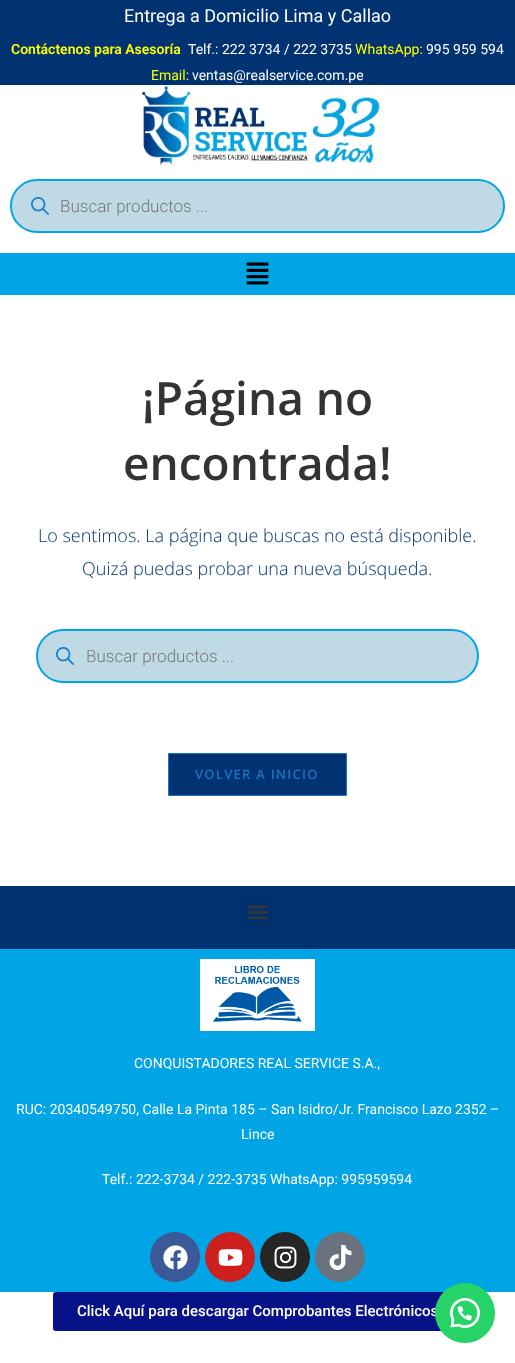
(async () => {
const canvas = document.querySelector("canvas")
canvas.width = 515
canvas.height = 1363
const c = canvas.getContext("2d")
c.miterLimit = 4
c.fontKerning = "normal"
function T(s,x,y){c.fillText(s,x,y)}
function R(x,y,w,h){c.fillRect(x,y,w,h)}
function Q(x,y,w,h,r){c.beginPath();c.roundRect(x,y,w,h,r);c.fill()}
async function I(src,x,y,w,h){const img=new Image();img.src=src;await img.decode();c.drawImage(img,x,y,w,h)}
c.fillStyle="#fff"
R(0,0,515,1363)
c.fillStyle="#013372"
R(0,0,515,85)
c.font="18px Roboto"
c.fillStyle="#fff"
T("Entrega a Domicilio Lima y Callao",124,22)
c.font="600 14px Roboto"
c.fillStyle="#ff0"
T("Contáctenos para Asesoría",11,54)
c.font="14px Roboto"
c.fillStyle="#fff"
T("Telf.: 222 3734 / 222 3735",188,54)
c.fillStyle="#ff0"
T("WhatsApp:",355,54)
c.fillStyle="#fff"
T("995 959 594",426,54)
c.fillStyle="#ff0"
T("Email:",151,80)
c.fillStyle="#fff"
T("ventas@realservice.com.pe",192,80)
await I("1.png",141,85,240,81)
c.fillStyle="#c0dae5"
c.beginPath()
c.roundRect(11,180,493,52,26)
c.fill()
c.strokeStyle="#01a5e5"
c.lineWidth=2
c.stroke()
await I("2.png",31,197,18,18)
c.font="300 17px Roboto"
c.fillStyle="#777"
T("Buscar productos ...",60,212)
c.fillStyle="#01a5e5"
R(0,253,515,42)
await I("3.png",246,262,23,23)
c.font="600 46px Open Sans"
c.fillStyle="#333"
T("¡Página no",142,415)
T("encontrada!",123,480)
c.font="300 18px Open Sans"
c.fillStyle="#013372"
T("Lo sentimos. La página que buscas no está disponible.",38,542)
T("Quizá puedas probar una nueva búsqueda.",82,575)
c.fillStyle="#c0dae5"
c.beginPath()
c.roundRect(37,630,441,52,26)
c.fill()
c.stroke()
await I("2.png",56,647,18,18)
c.font="300 17px Roboto"
c.fillStyle="#777"
T("Buscar productos ...",86,662)
c.fillStyle="#013372"
c.beginPath()
c.rect(168.5,753.5,178,42)
c.fill()
c.strokeStyle="#1e73be"
c.lineWidth=1
c.stroke()
c.letterSpacing="1.25px"
c.font="600 13px Open Sans"
c.fillStyle="#1e73be"
T("VOLVER A INICIO",195,779)
c.fillStyle="#013372"
R(0,886,515,63)
c.fillStyle="#01306c"
Q(241,896,33,33,3)
await I("4.png",248,905,20,15)
c.fillStyle="#01a5e5"
R(0,949,515,343)
await I("5.png",200,959,115,72)
c.letterSpacing="0px"
c.font="14px Roboto"
c.fillStyle="#fff"
T("CONQUISTADORES REAL SERVICE S.A.,",134,1068)
T("RUC: 20340549750, Calle La Pinta 185 – San Isidro/Jr. Francisco Lazo 2352 –",16,1114)
T("Lince",241,1139)
T("Telf.: 222-3734 / 222-3735 WhatsApp: 995959594",102,1184)
c.fillStyle="#3b5998"
c.beginPath()
c.arc(175,1257,25,0,7)
c.fill()
await I("6.png",163,1245,25,25)
c.fillStyle="#cd201f"
c.beginPath()
c.arc(230,1257,25,0,7)
c.fill()
await I("7.png",218,1249,25,17)
c.fillStyle="#262626"
c.beginPath()
c.arc(285,1257,25,0,7)
c.fill()
await I("8.png",274,1246,23,23)
c.fillStyle="#69727d"
c.beginPath()
c.arc(340,1257,25,0,7)
c.fill()
await I("9.png",329,1245,23,25)
c.fillStyle="#071188"
Q(53,1292,409,39,3)
c.font="500 15px Roboto"
c.fillStyle="#fff"
T("Click Aquí para descargar Comprobantes Electrónicos",77,1316)
c.fillStyle="#25d366"
c.beginPath()
c.arc(465,1313,30,0,7)
c.fill()
await I("10.png",450,1298,30,30)
})()
